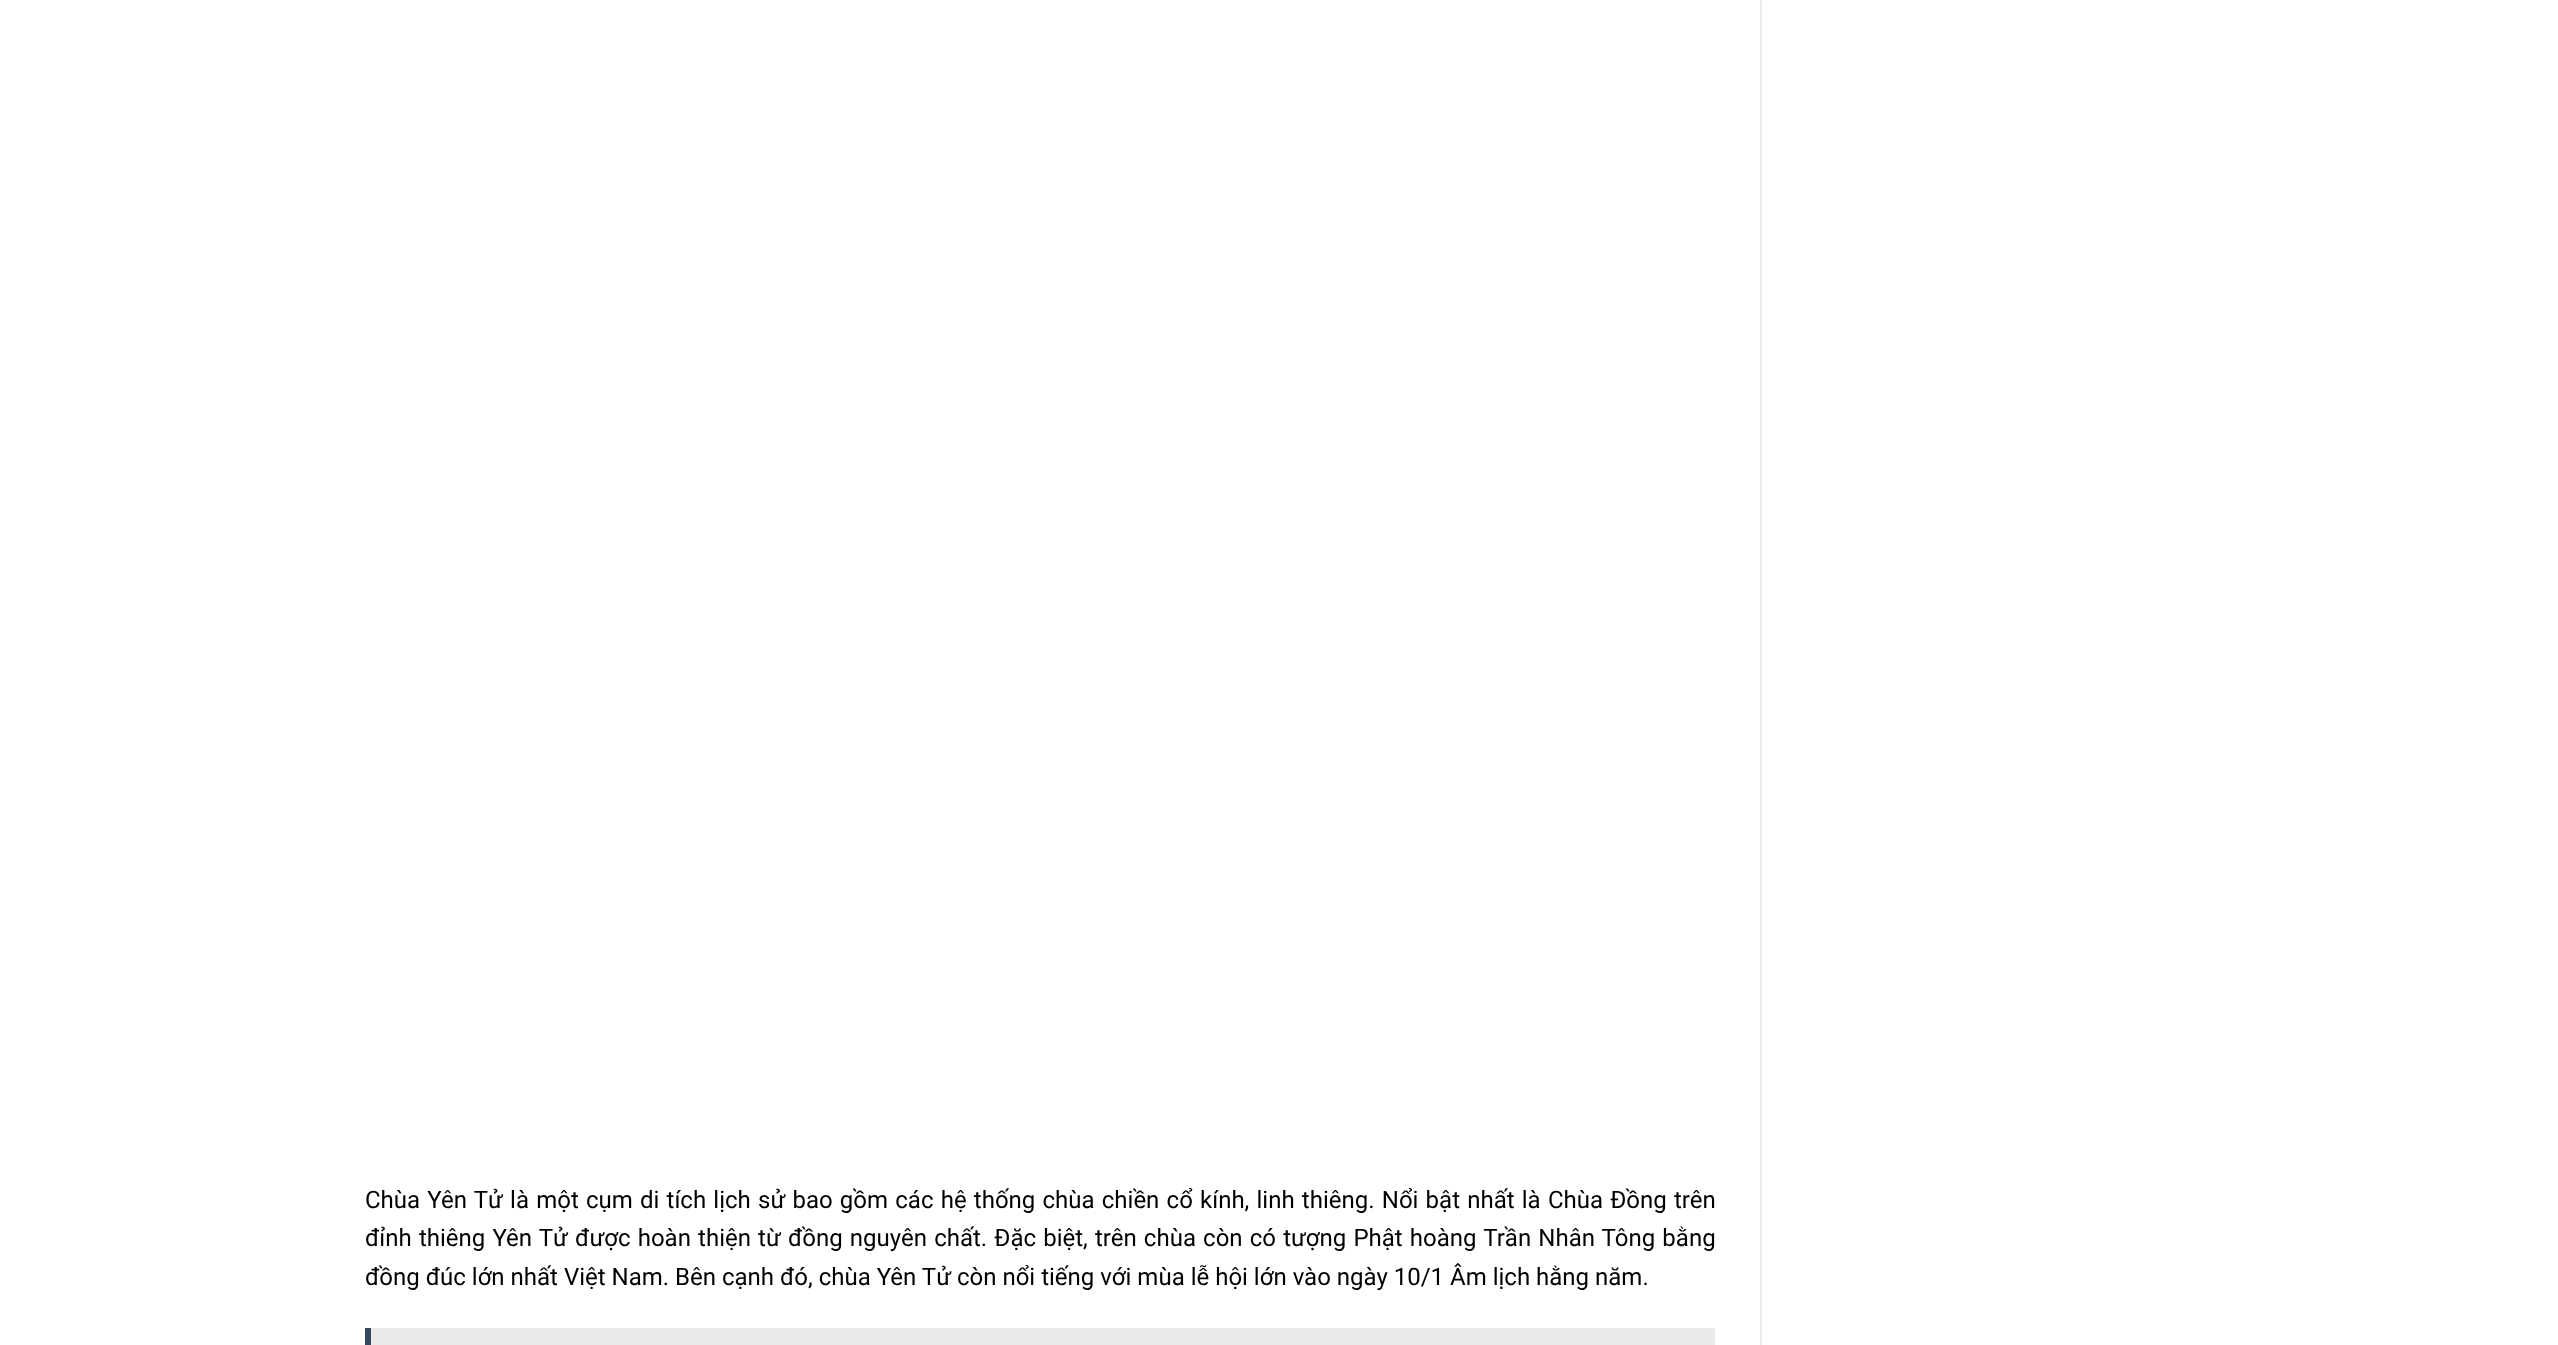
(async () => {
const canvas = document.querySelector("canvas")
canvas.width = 2558
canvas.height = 1345
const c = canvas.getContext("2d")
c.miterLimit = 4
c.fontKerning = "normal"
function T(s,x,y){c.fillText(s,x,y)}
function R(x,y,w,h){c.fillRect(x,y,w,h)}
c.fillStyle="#fff"
R(0,0,2558,1345)
c.wordSpacing="1.25px"
c.font="24px Roboto"
c.fillStyle="#000"
T("Chùa Yên Tử là một cụm di tích lịch sử bao gồm các hệ thống chùa chiền cổ kính, linh thiêng. Nổi bật nhất là Chùa Đồng trên",365,1208)
c.wordSpacing="1.2px"
T("đỉnh thiêng Yên Tử được hoàn thiện từ đồng nguyên chất. Đặc biệt, trên chùa còn có tượng Phật hoàng Trần Nhân Tông bằng",365,1246)
c.wordSpacing="0px"
T("đồng đúc lớn nhất Việt Nam. Bên cạnh đó, chùa Yên Tử còn nổi tiếng với mùa lễ hội lớn vào ngày 10/1 Âm lịch hằng năm.",365,1285)
c.fillStyle="#eaeaea"
R(371,1328,1344,17)
c.fillStyle="#34495e"
R(365,1328,6,17)
c.fillStyle="#ececec"
R(1760,0,2,1345)
})()
